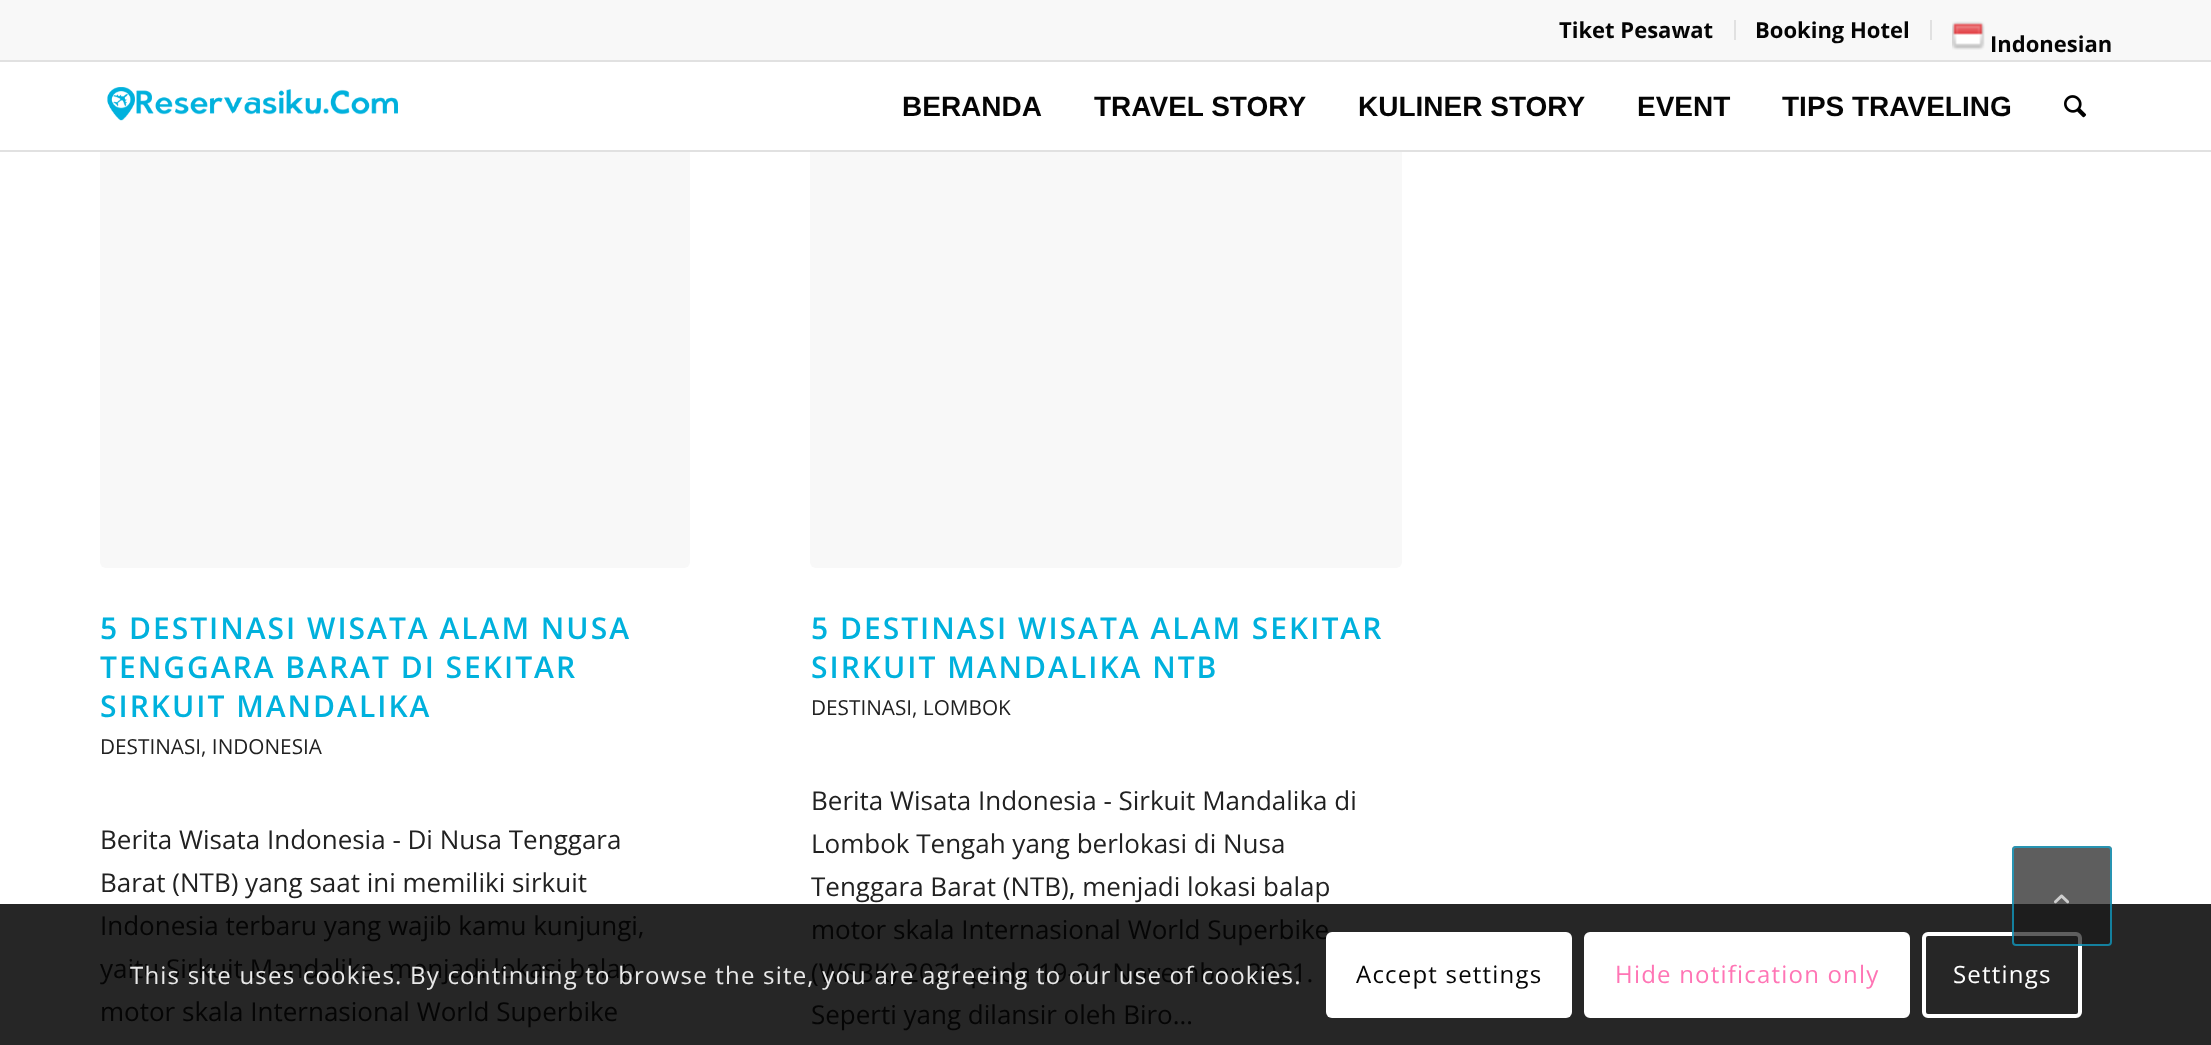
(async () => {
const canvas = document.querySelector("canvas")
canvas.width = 2211
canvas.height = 1045
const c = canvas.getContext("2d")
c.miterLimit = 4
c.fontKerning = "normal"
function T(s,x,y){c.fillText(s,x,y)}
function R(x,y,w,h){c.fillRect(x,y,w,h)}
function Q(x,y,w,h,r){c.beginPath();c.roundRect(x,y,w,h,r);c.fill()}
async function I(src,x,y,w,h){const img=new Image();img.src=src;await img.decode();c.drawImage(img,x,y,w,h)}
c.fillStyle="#fff"
R(0,0,2211,1045)
c.fillStyle="#262626"
R(0,904,2211,141)
c.fillStyle="#f8f8f8"
R(0,0,2211,60)
c.fillStyle="#e1e1e1"
R(0,60,2211,2)
R(1734,20,2,20)
c.font="bold 22px Open Sans"
c.fillStyle="#050505"
T("Tiket Pesawat",1559,38)
c.fillStyle="#e1e1e1"
R(1930,20,2,20)
c.fillStyle="#050505"
T("Booking Hotel",1755,38)
await I("1.png",1952,21,33,29)
T("Indonesian",1990,52)
c.fillStyle="#f8f8f8"
Q(100,90,590,478,6)
Q(810,90,592,478,6)
c.fillStyle="#fffffff2"
R(100,90,1302,60)
c.fillStyle="#e1e1e1"
R(0,150,2211,2)
await I("2.png",107,87,291,34)
c.font="bold 28px Liberation Sans"
c.fillStyle="#050505"
T("BERANDA",902,116)
T("TRAVEL STORY",1094,116)
T("KULINER STORY",1358,116)
T("EVENT",1637,116)
T("TIPS TRAVELING",1782,116)
await I("3.png",2064,95,23,23)
c.letterSpacing="2px"
c.font="600 30px Open Sans"
c.fillStyle="#00b1dd"
T("5 DESTINASI WISATA ALAM NUSA",100,639)
T("TENGGARA BARAT DI SEKITAR",100,678)
T("SIRKUIT MANDALIKA",100,717)
c.letterSpacing="0px"
c.font="20.75px Open Sans"
c.fillStyle="#212121"
T("DESTINASI, INDONESIA",100,754)
c.font="26px Open Sans"
T("Berita Wisata Indonesia - Di Nusa Tenggara",100,849)
T("Barat (NTB) yang saat ini memiliki sirkuit",100,892)
c.fillStyle="#050505"
T("Indonesia terbaru yang wajib kamu kunjungi,",100,935)
T("yaitu Sirkuit Mandalika, menjadi lokasi balap",100,978)
T("motor skala Internasional World Superbike",100,1021)
c.letterSpacing="2px"
c.font="600 30px Open Sans"
c.fillStyle="#00b1dd"
T("5 DESTINASI WISATA ALAM SEKITAR",811,639)
T("SIRKUIT MANDALIKA NTB",811,678)
c.letterSpacing="0px"
c.font="20.75px Open Sans"
c.fillStyle="#212121"
T("DESTINASI, LOMBOK",811,715)
c.font="26px Open Sans"
T("Berita Wisata Indonesia - Sirkuit Mandalika di",811,810)
T("Lombok Tengah yang berlokasi di Nusa",811,853)
T("Tenggara Barat (NTB), menjadi lokasi balap",811,896)
c.fillStyle="#050505"
T("motor skala Internasional World Superbike",811,939)
T("(WSBK) 2021 pada 19-21 November 2021.",811,982)
T("Seperti yang dilansir oleh Biro…",811,1024)
c.beginPath()
c.roundRect(1924,934,156,82,4)
c.strokeStyle="#fff"
c.lineWidth=4
c.stroke()
c.fillStyle="#191919b3"
Q(2012,846,100,100,4)
c.beginPath()
c.roundRect(2013,847,98,98,3)
c.strokeStyle="#11abd6b3"
c.lineWidth=2
c.stroke()
await I("4.png",2054,894,15,10)
c.letterSpacing="1.2px"
c.font="24px Open Sans"
c.fillStyle="#e9e9e9"
T("This site uses cookies. By continuing to browse the site, you are agreeing to our use of cookies.",130,984)
c.fillStyle="#fff"
Q(1326,932,246,86,6)
c.fillStyle="#050505"
T("Accept settings",1356,983)
c.fillStyle="#fff"
c.beginPath()
c.roundRect(1586,934,322,82,4)
c.fill()
c.strokeStyle="#fff"
c.lineWidth=4
c.stroke()
c.fillStyle="#ff75b5"
T("Hide notification only",1615,983)
c.fillStyle="#fff"
T("Settings",1953,983)
})()
